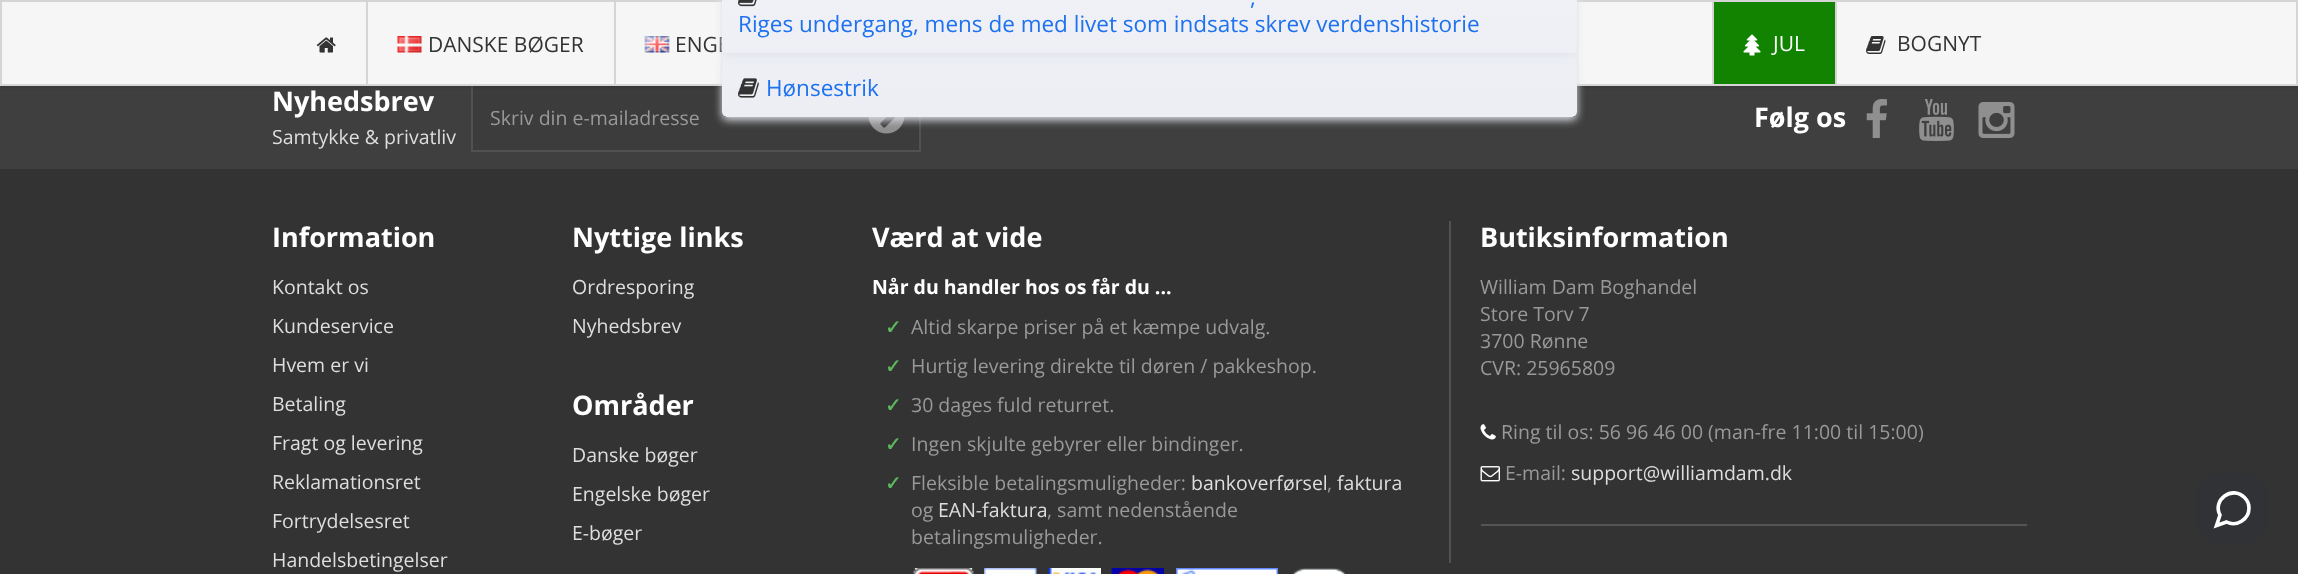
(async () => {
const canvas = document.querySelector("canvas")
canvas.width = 2298
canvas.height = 574
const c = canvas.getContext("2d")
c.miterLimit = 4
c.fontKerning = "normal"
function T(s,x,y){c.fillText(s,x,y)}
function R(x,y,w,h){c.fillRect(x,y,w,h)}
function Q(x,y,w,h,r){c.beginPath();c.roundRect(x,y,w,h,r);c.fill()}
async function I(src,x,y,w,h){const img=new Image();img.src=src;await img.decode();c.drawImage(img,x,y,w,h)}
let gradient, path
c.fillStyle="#333"
R(0,0,2298,574)
c.fillStyle="#3f3f3f"
R(0,86,2298,83)
c.fillStyle="#3c3c3c"
c.beginPath()
c.rect(472,85,448,66)
c.fill()
c.strokeStyle="#515151"
c.lineWidth=2
c.stroke()
c.fillStyle="#00000026"
c.filter="blur(1.5px)"
c.beginPath()
c.rect(0,2,2298,85)
c.fill()
c.filter="none"
c.fillStyle="#f6f6f6"
c.beginPath()
c.rect(1,1,2296,84)
c.fill()
c.strokeStyle="#d6d4d4"
c.stroke()
await I("8.png",868,117,37,17)
c.fillStyle="#0000001a"
c.filter="blur(1.5px)"
c.beginPath()
c.roundRect(722,-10,855,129,5)
c.fill()
c.filter="none"
c.font="21px Open Sans"
c.fillStyle="#333"
T("ENGE",675,52)
gradient = c.createLinearGradient(1149,-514,1149,117)
gradient.addColorStop(0,"#fdfdfd")
gradient.addColorStop(1,"#eceef4")
c.fillStyle = gradient
Q(722,-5,855,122,5)
c.save()
path = new Path2D("M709 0h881v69h-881zm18-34h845c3 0 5 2 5 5v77c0 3-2 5-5 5h-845c-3 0-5-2-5-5v-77c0-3 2-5 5-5z")
c.clip(path,"evenodd")
c.fillStyle="#e3e5ec"
c.filter="blur(4px)"
c.beginPath()
c.roundRect(722,-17,855,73,5)
c.fill()
c.filter="none"
c.restore()
await I("1.png",738,0,19,7)
c.font="22.5px Open Sans"
c.fillStyle="#1e72ef"
T(",",1250,5)
T("Riges undergang, mens de med livet som indsats skrev verdenshistorie",738,32)
c.save()
path = new Path2D("M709 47h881v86h-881zm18 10h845c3 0 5 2 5 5v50c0 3-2 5-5 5h-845c-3 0-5-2-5-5v-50c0-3 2-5 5-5z")
c.clip(path,"evenodd")
c.fillStyle="#e3e5ec"
c.filter="blur(4px)"
c.beginPath()
c.roundRect(722,60,855,60,5)
c.fill()
c.filter="none"
c.restore()
await I("2.png",738,78,21,20)
T("Hønsestrik",766,96)
await I("3.png",316,37,20,16)
c.fillStyle="#d6d4d4"
R(366,2,2,82)
await I("4.png",397,36,25,17)
c.font="21px Open Sans"
c.fillStyle="#333"
T("DANSKE BØGER",428,52)
c.fillStyle="#d6d4d4"
R(614,2,2,82)
await I("5.png",644,36,26,17)
c.fillStyle="#118300"
R(1714,2,121,82)
c.fillStyle="#d6d4d4"
R(1712,2,2,82)
await I("6.png",1743,34,18,22)
c.fillStyle="#fff"
T("JUL",1773,51)
c.fillStyle="#d6d4d4"
R(1835,2,2,82)
await I("7.png",1866,36,20,18)
c.fillStyle="#333"
T("BOGNYT",1897,51)
c.font="bold 27px Open Sans"
c.fillStyle="#fff"
T("Nyhedsbrev",272,111)
c.font="19.5px Open Sans"
c.fillStyle="#dedede"
T("Samtykke & privatliv",272,144)
c.fillStyle="#999"
T("Skriv din e-mailadresse",490,125)
c.font="bold 27px Open Sans"
c.fillStyle="#fff"
T("Følg os",1754,127)
await I("9.png",1866,99,21,39)
await I("10.png",1919,99,35,42)
await I("11.png",1978,102,37,36)
T("Information",272,247)
c.font="19.5px Open Sans"
c.fillStyle="#dedede"
T("Kontakt os",272,294)
T("Kundeservice",272,333)
T("Hvem er vi",272,372)
T("Betaling",272,411)
T("Fragt og levering",272,450)
T("Reklamationsret",272,489)
T("Fortrydelsesret",272,528)
T("Handelsbetingelser",272,567)
c.font="bold 27px Open Sans"
c.fillStyle="#fff"
T("Nyttige links",572,247)
c.font="19.5px Open Sans"
c.fillStyle="#dedede"
T("Ordresporing",572,294)
T("Nyhedsbrev",572,333)
c.font="bold 27px Open Sans"
c.fillStyle="#fff"
T("Områder",572,415)
c.font="19.5px Open Sans"
c.fillStyle="#dedede"
T("Danske bøger",572,462)
T("Engelske bøger",572,501)
T("E-bøger",572,540)
c.font="bold 27px Open Sans"
c.fillStyle="#fff"
T("Værd at vide",872,247)
c.font="bold 19.5px Open Sans"
T("Når du handler hos os får du ...",872,294)
c.font="bold 19.5px DejaVu Sans"
c.fillStyle="#5cb85c"
T("✓",885,334)
c.font="19.5px Open Sans"
c.fillStyle="#999"
T("Altid skarpe priser på et kæmpe udvalg.",911,334)
c.font="bold 19.5px DejaVu Sans"
c.fillStyle="#5cb85c"
T("✓",885,373)
c.font="19.5px Open Sans"
c.fillStyle="#999"
T("Hurtig levering direkte til døren / pakkeshop.",911,373)
c.font="bold 19.5px DejaVu Sans"
c.fillStyle="#5cb85c"
T("✓",885,412)
c.font="19.5px Open Sans"
c.fillStyle="#999"
T("30 dages fuld returret.",911,412)
c.font="bold 19.5px DejaVu Sans"
c.fillStyle="#5cb85c"
T("✓",885,451)
c.font="19.5px Open Sans"
c.fillStyle="#999"
T("Ingen skjulte gebyrer eller bindinger.",911,451)
c.font="bold 19.5px DejaVu Sans"
c.fillStyle="#5cb85c"
T("✓",885,490)
c.font="19.5px Open Sans"
c.fillStyle="#999"
T("Fleksible betalingsmuligheder:",911,490)
c.fillStyle="#dedede"
T("bankoverførsel",1191,490)
T("faktura",1337,490)
c.fillStyle="#999"
T(",",1327,490)
T("og",911,517)
c.fillStyle="#dedede"
T("EAN-faktura",938,517)
c.fillStyle="#999"
T(", samt nedenstående",1047,517)
T("betalingsmuligheder.",911,544)
await I("12.png",913,568,61,6)
await I("13.png",984,568,53,6)
await I("14.png",1048,568,53,6)
await I("15.png",1111,568,53,6)
await I("16.png",1176,568,102,6)
await I("17.png",1292,568,54,6)
c.fillStyle="#515151"
R(1449,221,2,342)
c.font="bold 27px Open Sans"
c.fillStyle="#fff"
T("Butiksinformation",1480,247)
c.font="19.5px Open Sans"
c.fillStyle="#999"
T("William Dam Boghandel",1480,294)
T("Store Torv 7",1480,321)
T("3700 Rønne",1480,348)
T("CVR: 25965809",1480,375)
await I("18.png",1480,424,16,16)
T("Ring til os: 56 96 46 00 (man-fre 11:00 til 15:00)",1501,439)
await I("19.png",1480,466,20,16)
T("E-mail:",1505,480)
c.fillStyle="#dedede"
T("support@williamdam.dk",1571,480)
c.fillStyle="#555"
R(1481,524,546,2)
c.fillStyle="#303235"
Q(2196,473,72,72,24)
path = new Path2D("M2249 508c0 11.5-12.5 19-22.5 14l-10 3.5l3.5-10.5c-8-15 12-30 24.5-17.5c2.5 2.5 4.5 6.5 4.5 10.5z")
c.strokeStyle="#fff"
c.lineWidth=3.6
c.stroke(path)
})()
